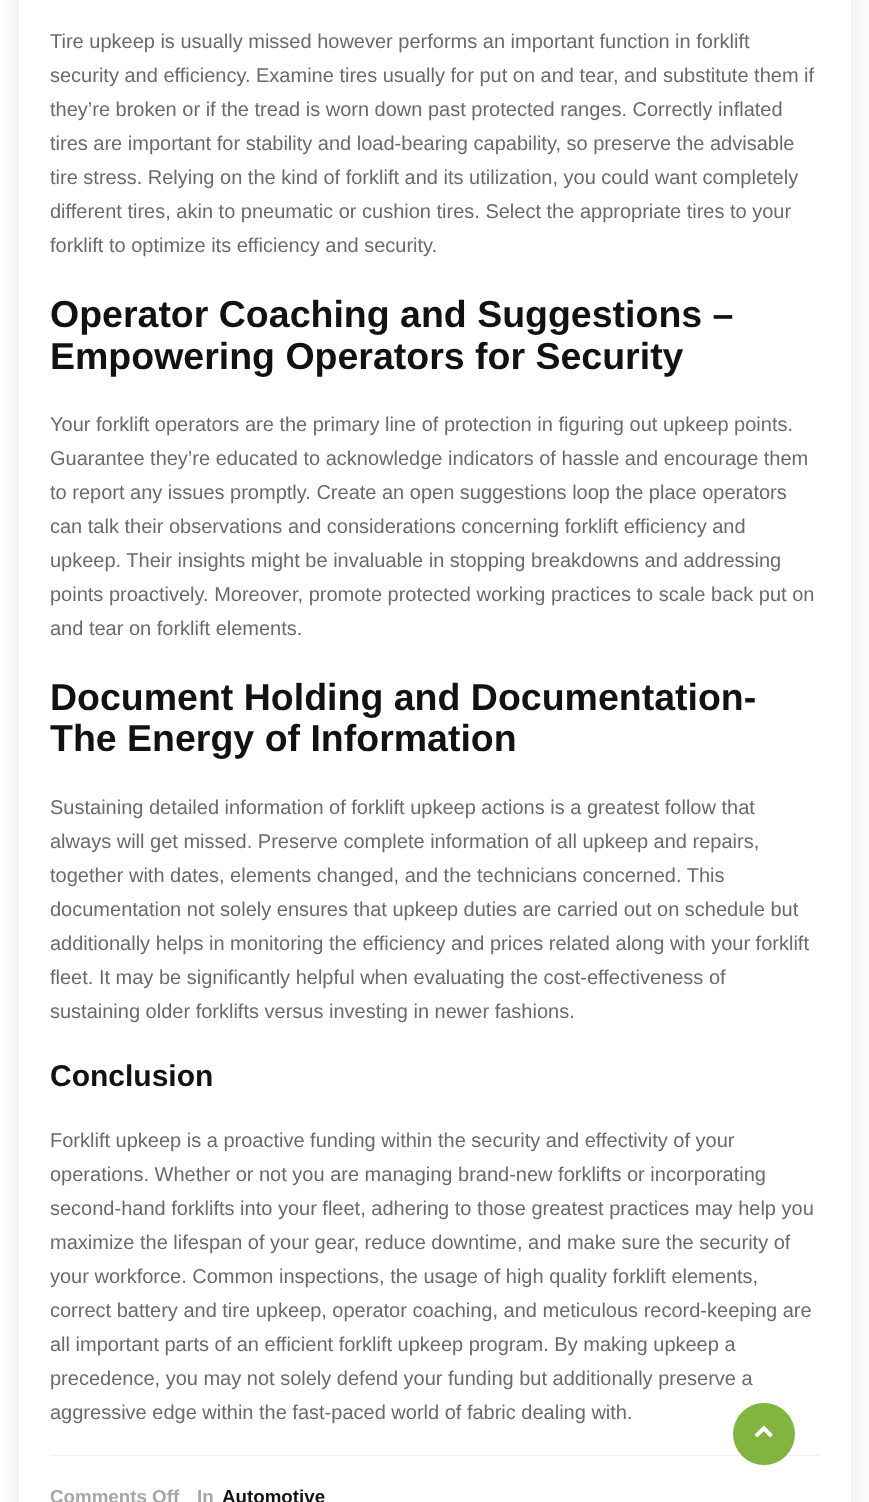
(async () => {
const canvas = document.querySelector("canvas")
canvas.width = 869
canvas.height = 1502
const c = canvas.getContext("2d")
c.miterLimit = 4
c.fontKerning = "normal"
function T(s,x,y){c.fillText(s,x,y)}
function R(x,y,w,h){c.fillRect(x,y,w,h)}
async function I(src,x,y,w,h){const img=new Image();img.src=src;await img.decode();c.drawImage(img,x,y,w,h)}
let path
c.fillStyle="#fff"
R(0,0,869,1502)
c.save()
path = new Path2D("M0 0h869v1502h-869zm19-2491h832v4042h-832z")
c.clip(path,"evenodd")
c.fillStyle="#0000001a"
c.filter="blur(14px)"
c.beginPath()
c.rect(19,-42,832,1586)
c.fill()
c.filter="none"
c.restore()
c.font="20px Liberation Sans"
c.fillStyle="#6a6a6a"
T("Tire upkeep is usually missed however performs an important function in forklift",50,48)
T("security and efficiency. Examine tires usually for put on and tear, and substitute them if",50,82)
T("they’re broken or if the tread is worn down past protected ranges. Correctly inflated",50,116)
T("tires are important for stability and load-bearing capability, so preserve the advisable",50,150)
T("tire stress. Relying on the kind of forklift and its utilization, you could want completely",50,184)
T("different tires, akin to pneumatic or cushion tires. Select the appropriate tires to your",50,218)
T("forklift to optimize its efficiency and security.",50,252)
c.font="bold 37.5px Liberation Sans"
c.fillStyle="#121212"
T("Operator Coaching and Suggestions –",50,327)
T("Empowering Operators for Security",50,369)
c.font="20px Liberation Sans"
c.fillStyle="#6a6a6a"
T("Your forklift operators are the primary line of protection in figuring out upkeep points.",50,431)
T("Guarantee they’re educated to acknowledge indicators of hassle and encourage them",50,465)
T("to report any issues promptly. Create an open suggestions loop the place operators",50,499)
T("can talk their observations and considerations concerning forklift efficiency and",50,533)
T("upkeep. Their insights might be invaluable in stopping breakdowns and addressing",50,567)
T("points proactively. Moreover, promote protected working practices to scale back put on",50,601)
T("and tear on forklift elements.",50,635)
c.font="bold 37.5px Liberation Sans"
c.fillStyle="#121212"
T("Document Holding and Documentation-",50,710)
T("The Energy of Information",50,751)
c.font="20px Liberation Sans"
c.fillStyle="#6a6a6a"
T("Sustaining detailed information of forklift upkeep actions is a greatest follow that",50,814)
T("always will get missed. Preserve complete information of all upkeep and repairs,",50,848)
T("together with dates, elements changed, and the technicians concerned. This",50,882)
T("documentation not solely ensures that upkeep duties are carried out on schedule but",50,916)
T("additionally helps in monitoring the efficiency and prices related along with your forklift",50,950)
T("fleet. It may be significantly helpful when evaluating the cost-effectiveness of",50,984)
T("sustaining older forklifts versus investing in newer fashions.",50,1018)
c.font="bold 30px Liberation Sans"
c.fillStyle="#121212"
T("Conclusion",50,1086)
c.font="20px Liberation Sans"
c.fillStyle="#6a6a6a"
T("Forklift upkeep is a proactive funding within the security and effectivity of your",50,1147)
T("operations. Whether or not you are managing brand-new forklifts or incorporating",50,1181)
T("second-hand forklifts into your fleet, adhering to those greatest practices may help you",50,1215)
T("maximize the lifespan of your gear, reduce downtime, and make sure the security of",50,1249)
T("your workforce. Common inspections, the usage of high quality forklift elements,",50,1283)
T("correct battery and tire upkeep, operator coaching, and meticulous record-keeping are",50,1317)
T("all important parts of an efficient forklift upkeep program. By making upkeep a",50,1351)
T("precedence, you may not solely defend your funding but additionally preserve a",50,1385)
T("aggressive edge within the fast-paced world of fabric dealing with.",50,1419)
c.fillStyle="#eee"
R(50,1455,770,1)
c.font="bold 18.75px Liberation Sans"
c.fillStyle="#a7a5a5"
T("Comments Off",50,1503)
T("In",197,1503)
c.fillStyle="#121212"
T("Automotive",222,1503)
c.fillStyle="#82b440"
c.beginPath()
c.arc(764,1434,31,0,7)
c.fill()
await I("1.png",754,1425,19,13)
})()
